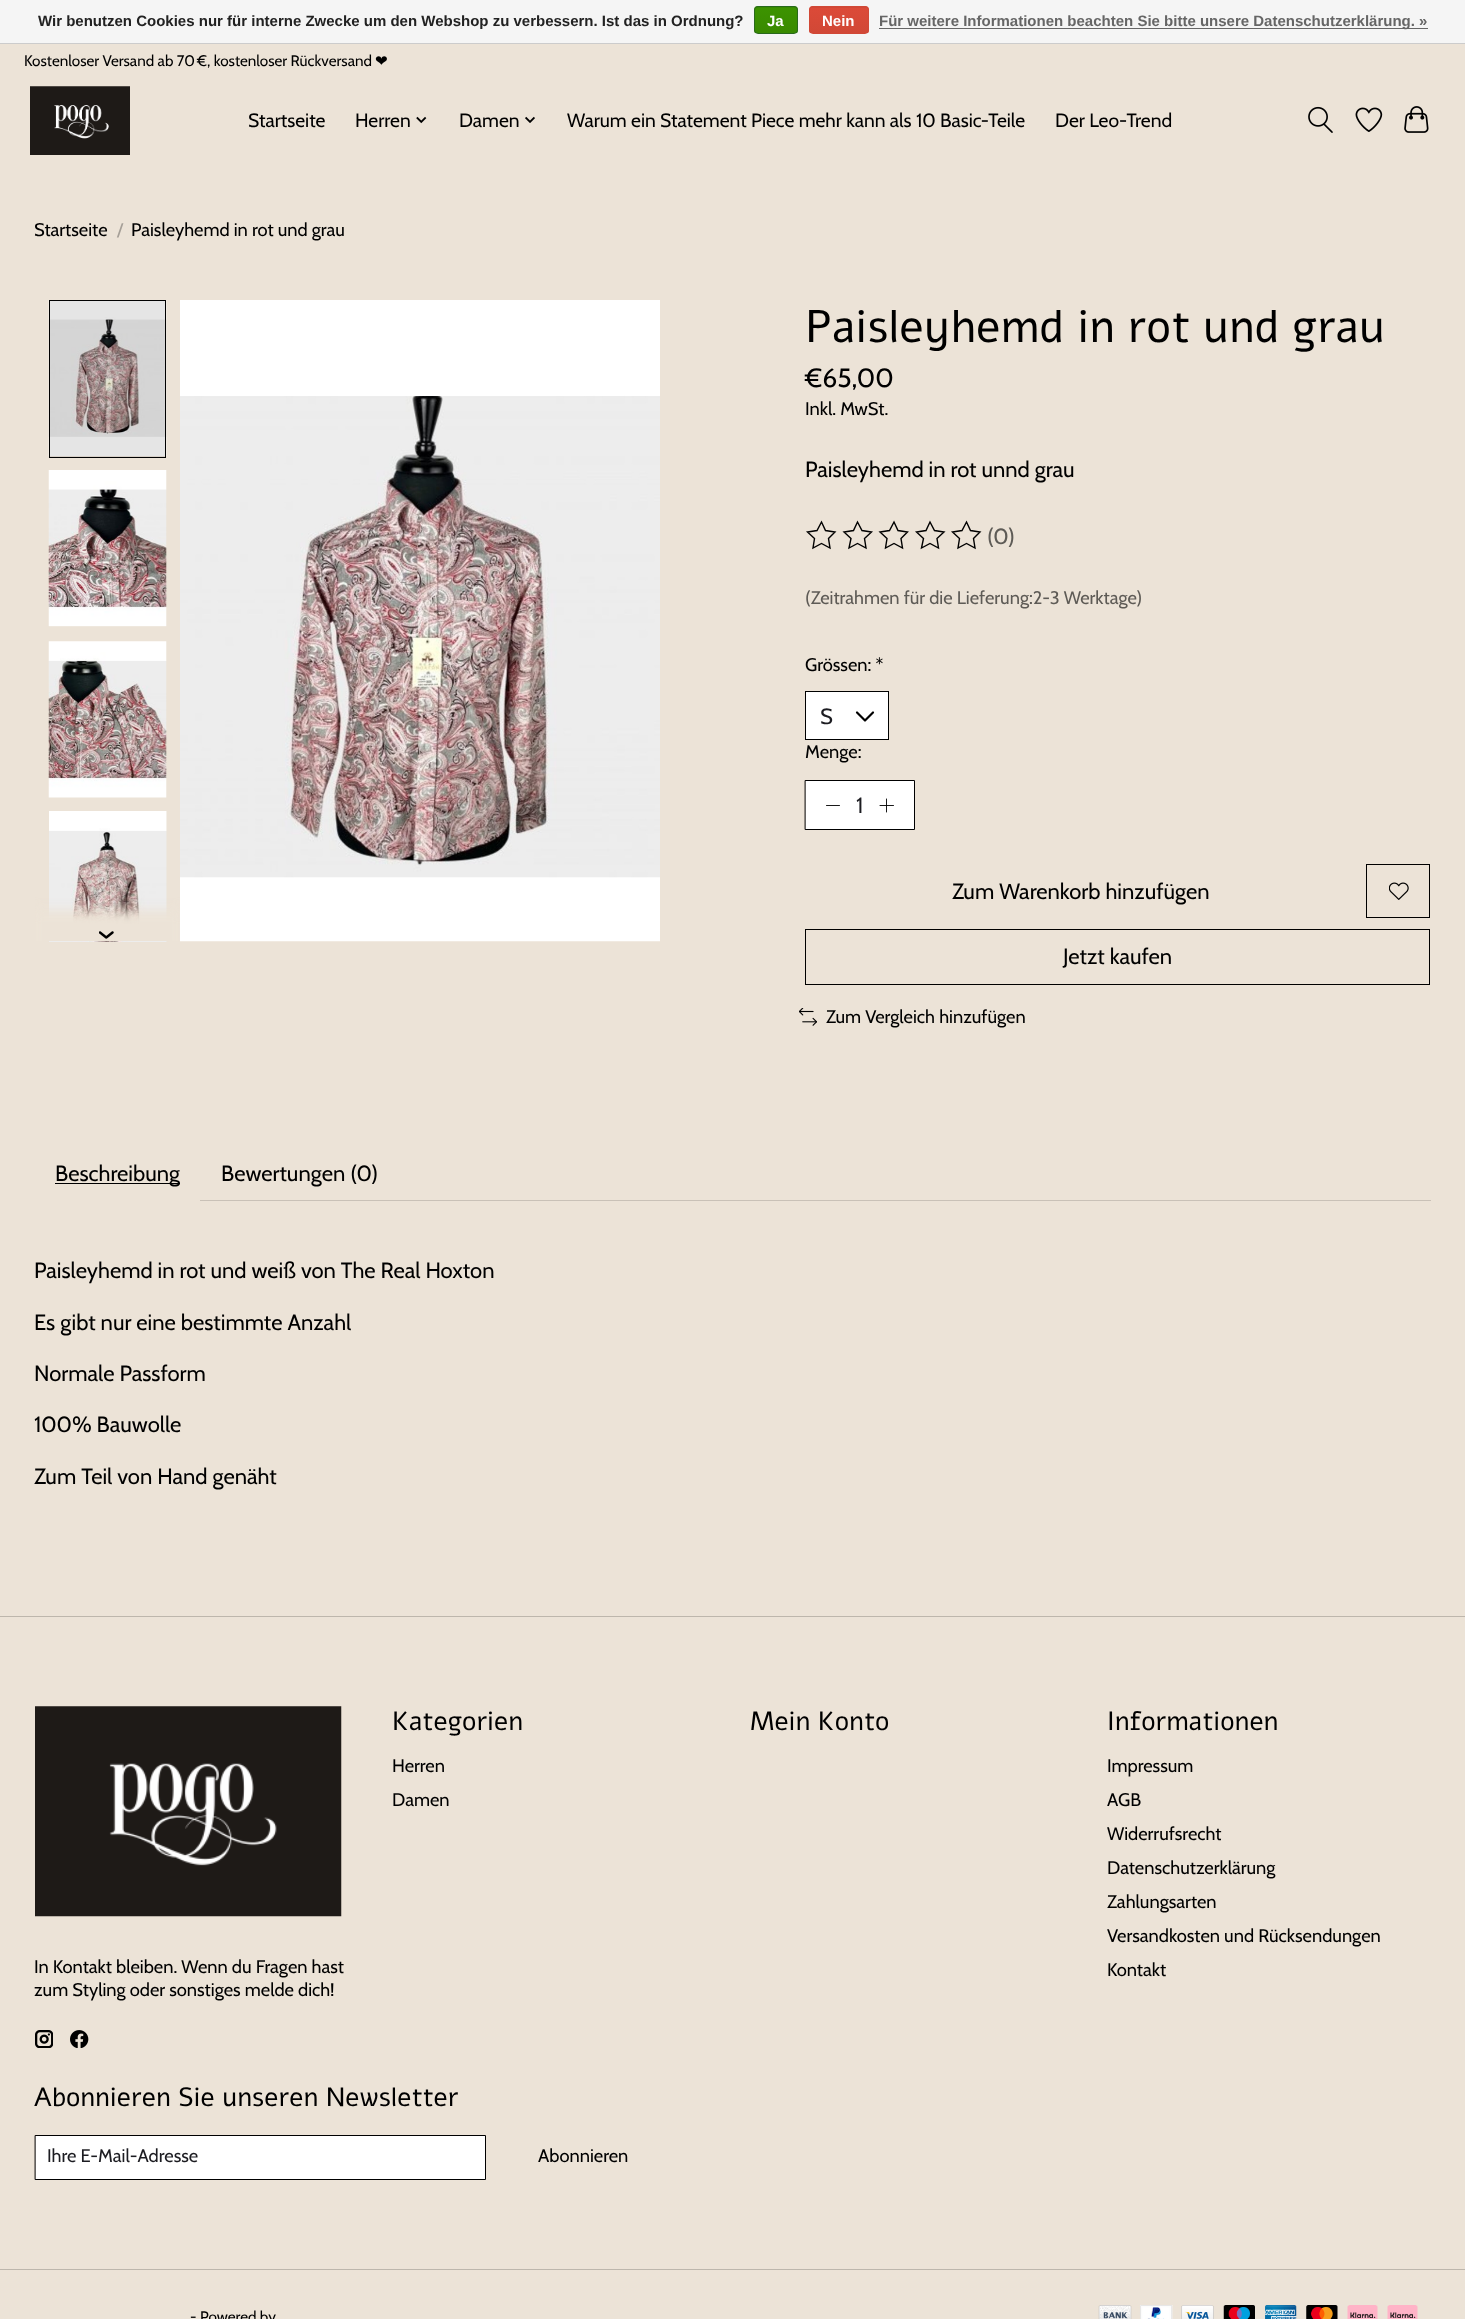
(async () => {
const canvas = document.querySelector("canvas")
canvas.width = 1465
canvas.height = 2319
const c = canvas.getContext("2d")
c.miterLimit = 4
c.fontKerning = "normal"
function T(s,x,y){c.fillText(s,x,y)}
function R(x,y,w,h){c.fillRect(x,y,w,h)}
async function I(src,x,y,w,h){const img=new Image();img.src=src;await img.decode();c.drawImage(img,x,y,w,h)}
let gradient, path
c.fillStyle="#ece3d7"
R(0,0,1465,2319)
c.fillStyle="#d4ccc2"
R(50,456,115,1)
c.fillStyle="#f5f5f5"
R(0,0,1465,43)
c.fillStyle="#ccc"
R(0,43,1465,1)
c.font="bold 15px Liberation Sans"
c.fillStyle="#222"
T("Wir benutzen Cookies nur für interne Zwecke um den Webshop zu verbessern. Ist das in Ordnung?",38,26)
c.save()
c.beginPath()
c.roundRect(754,6,44,28,4)
c.clip()
gradient = c.createLinearGradient(776,-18,776,7.5)
gradient.addColorStop(0,"#3c9300")
gradient.addColorStop(1,"#398a00")
c.fillStyle = gradient
R(754,6,44,2)
gradient = c.createLinearGradient(776,7.5,776,33)
gradient.addColorStop(0,"#3c9300")
gradient.addColorStop(1,"#398a00")
c.fillStyle = gradient
R(754,8,44,25)
c.restore()
c.beginPath()
c.roundRect(754.5,6.5,43,27,3.5)
c.strokeStyle="#29691d"
c.stroke()
c.fillStyle="#fff"
T("Ja",767,26)
c.save()
c.beginPath()
c.roundRect(809,6,60,28,4)
c.clip()
gradient = c.createLinearGradient(839,-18,839,7.5)
gradient.addColorStop(0,"#dc4a38")
gradient.addColorStop(1,"#d14836")
c.fillStyle = gradient
R(809,6,60,2)
gradient = c.createLinearGradient(839,7.5,839,33)
gradient.addColorStop(0,"#dc4a38")
gradient.addColorStop(1,"#d14836")
c.fillStyle = gradient
R(809,8,60,25)
c.restore()
c.beginPath()
c.roundRect(809.5,6.5,59,27,3.5)
c.strokeStyle="#d14836"
c.stroke()
T("Nein",822,26)
c.fillStyle="#666"
R(879,28,549,1)
T("Für weitere Informationen beachten Sie bitte unsere Datenschutzerklärung. »",879,26)
c.font="15.25px Cabin"
c.fillStyle="#000"
T("Kostenloser Versand ab 70",24,66)
T("€, kostenloser Rückversand",197,66)
c.font="15.25px DejaVu Sans"
T("❤︎",375,66)
await I("1.png",30,86,100,69)
c.font="19.25px Cabin"
T("Startseite",248,127)
T("Herren",355,127)
await I("2.png",416,116,11,8)
T("Damen",459,127)
await I("3.png",525,116,10,7)
T("Warum ein Statement Piece mehr kann als 10 Basic-Teile",567,127)
T("Der Leo-Trend",1055,127)
await I("4.png",1308,106,25,27)
await I("5.png",1355,107,28,25)
await I("6.png",1404,106,25,27)
c.font="18.3px Cabin"
T("Startseite",34,236)
c.fillStyle="#a59f97"
T("/",117,236)
c.fillStyle="#000"
T("Paisleyhemd in rot und grau",131,236)
await I("7.png",48,300,119,157)
c.strokeStyle="#000"
c.strokeRect(49.5,300.5,116,157)
await I("8.png",48,470,119,157)
await I("9.png",48,641,119,157)
await I("10.png",49,811,118,131)
await I("12.png",180,300,480,642)
c.save()
c.beginPath()
c.rect(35,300,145,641)
c.clip()
c.fillStyle="#ece3d7"
c.filter="blur(6px)"
c.beginPath()
c.rect(30,910,154,50)
c.fill()
c.filter="none"
c.restore()
await I("11.png",99,931,15,8)
c.font="45.6px Alef"
T("Paisleyhemd in rot und grau",805,342)
c.font="26.4px Cabin"
T("€65,00",805,387)
c.font="18.3px Cabin"
T("Inkl. MwSt.",805,415)
c.font="22px Cabin"
T("Paisleyhemd in rot unnd grau",805,477)
path = new Path2D("M821.5 522l4 8.5l9.5 1.5l-6.5 6.5l1.5 9.5l-8.5-4.5l-8.5 4.5l1.5-9.5l-7-6.5l9.5-1.5z")
c.lineWidth=1.4
c.stroke(path)
path = new Path2D("M857.5 522l4.5 8.5l9.5 1.5l-7 6.5l1.5 9.5l-8.5-4.5l-8.5 4.5l2-9.5l-7-6.5l9.5-1.5z")
c.stroke(path)
path = new Path2D("M894 522l4 8.5l9.5 1.5l-6.5 6.5l1.5 9.5l-8.5-4.5l-8.5 4.5l1.5-9.5l-7-6.5l9.5-1.5z")
c.stroke(path)
path = new Path2D("M930 522l4.5 8.5l9.5 1.5l-7 6.5l1.5 9.5l-8.5-4.5l-8.5 4.5l2-9.5l-7-6.5l9.5-1.5z")
c.stroke(path)
path = new Path2D("M966.5 522l4 8.5l9.5 1.5l-6.5 6.5l1.5 9.5l-8.5-4.5l-8.5 4.5l1.5-9.5l-7-6.5l9.5-1.5z")
c.stroke(path)
c.fillStyle="#5e5b56"
T("(0)",987,544)
c.font="18.3px Cabin"
T("(Zeitrahmen für die Lieferung:2-3 Werktage)",805,604)
c.fillStyle="#000"
T("Grössen: *",805,671)
c.fillStyle="#fff"
R(806,692,82,47)
path = new Path2D("M873 712.5l-8 8l-8-8")
c.lineWidth=2.2
c.lineCap="round"
c.lineJoin="round"
c.stroke(path)
c.lineWidth=1
c.lineJoin="miter"
c.strokeRect(805.5,691.5,83,48)
c.font="22px Cabin"
c.fillStyle="#1c1c21"
T("S",820,724)
c.font="18.3px Cabin"
c.fillStyle="#000"
T("Menge:",805,758)
c.fillStyle="#fff"
c.beginPath()
c.rect(805.5,780.5,109,49)
c.fill()
c.stroke()
path = new Path2D("M826.5 805.5h13")
c.lineWidth=0.9
c.lineJoin="round"
c.stroke(path)
c.font="22px Cabin"
c.fillStyle="#1c1c21"
T("1",856,813)
path = new Path2D("M886.5 799v13m-6.5-6.5h13.5")
c.stroke(path)
c.fillStyle="#000"
T("Zum Warenkorb hinzufügen",952,899)
c.lineWidth=1
c.lineJoin="miter"
c.strokeRect(1366.5,864.5,63,53)
await I("13.png",1389,882,20,18)
c.strokeRect(805.5,929.5,624,55)
T("Jetzt kaufen",1063,964)
await I("14.png",799,1008,18,18)
c.font="18.3px Cabin"
T("Zum Vergleich hinzufügen",826,1023)
R(55,1183,125,1)
c.font="22px Cabin"
T("Beschreibung",55,1181)
T("Bewertungen (0)",221,1181)
c.fillStyle="#c9c1b7"
R(200,1200,1231,1)
c.fillStyle="#000"
T("Paisleyhemd in rot und weiß von The Real Hoxton",34,1278)
T("Es gibt nur eine bestimmte Anzahl",34,1330)
T("Normale Passform",34,1381)
T("100% Bauwolle",34,1432)
T("Zum Teil von Hand genäht",34,1484)
c.fillStyle="#bdb6ac"
R(0,1616,1465,1)
await I("15.png",35,1706,307,211)
c.font="18.3px Cabin"
c.fillStyle="#000"
T("In Kontakt bleiben. Wenn du Fragen hast",34,1973)
T("zum Styling oder sonstiges melde dich!",34,1996)
await I("16.png",35,2030,18,18)
await I("17.png",70,2030,19,18)
c.font="26.4px Alef"
T("Kategorien",392,1730)
c.font="18.3px Cabin"
T("Herren",392,1772)
T("Damen",392,1806)
c.font="26.4px Alef"
T("Mein Konto",750,1730)
T("Informationen",1107,1730)
c.font="18.3px Cabin"
T("Impressum",1107,1772)
T("AGB",1107,1806)
T("Widerrufsrecht",1107,1840)
T("Datenschutzerklärung",1107,1874)
T("Zahlungsarten",1107,1908)
T("Versandkosten und Rücksendungen",1107,1942)
T("Kontakt",1107,1976)
c.font="26.4px Alef"
T("Abonnieren Sie unseren Newsletter",34,2106)
c.fillStyle="#fff"
c.beginPath()
c.rect(35.5,2135.5,450,44)
c.fill()
c.stroke()
c.font="18.3px Cabin"
c.fillStyle="#1c1c21"
T("Ihre E-Mail-Adresse",47,2162)
c.fillStyle="#000"
T("Abonnieren",538,2162)
c.fillStyle="#bdb6ac"
R(0,2269,1465,1)
c.font="15.25px Cabin"
c.fillStyle="#000"
T("- Powered by",190,2322)
await I("18.png",1098,2305,34,14)
await I("19.png",1140,2305,33,14)
await I("20.png",1181,2305,33,14)
await I("21.png",1223,2305,32,14)
await I("22.png",1265,2305,32,14)
await I("23.png",1306,2305,32,14)
await I("24.png",1347,2305,31,14)
await I("25.png",1387,2305,31,14)
})()
